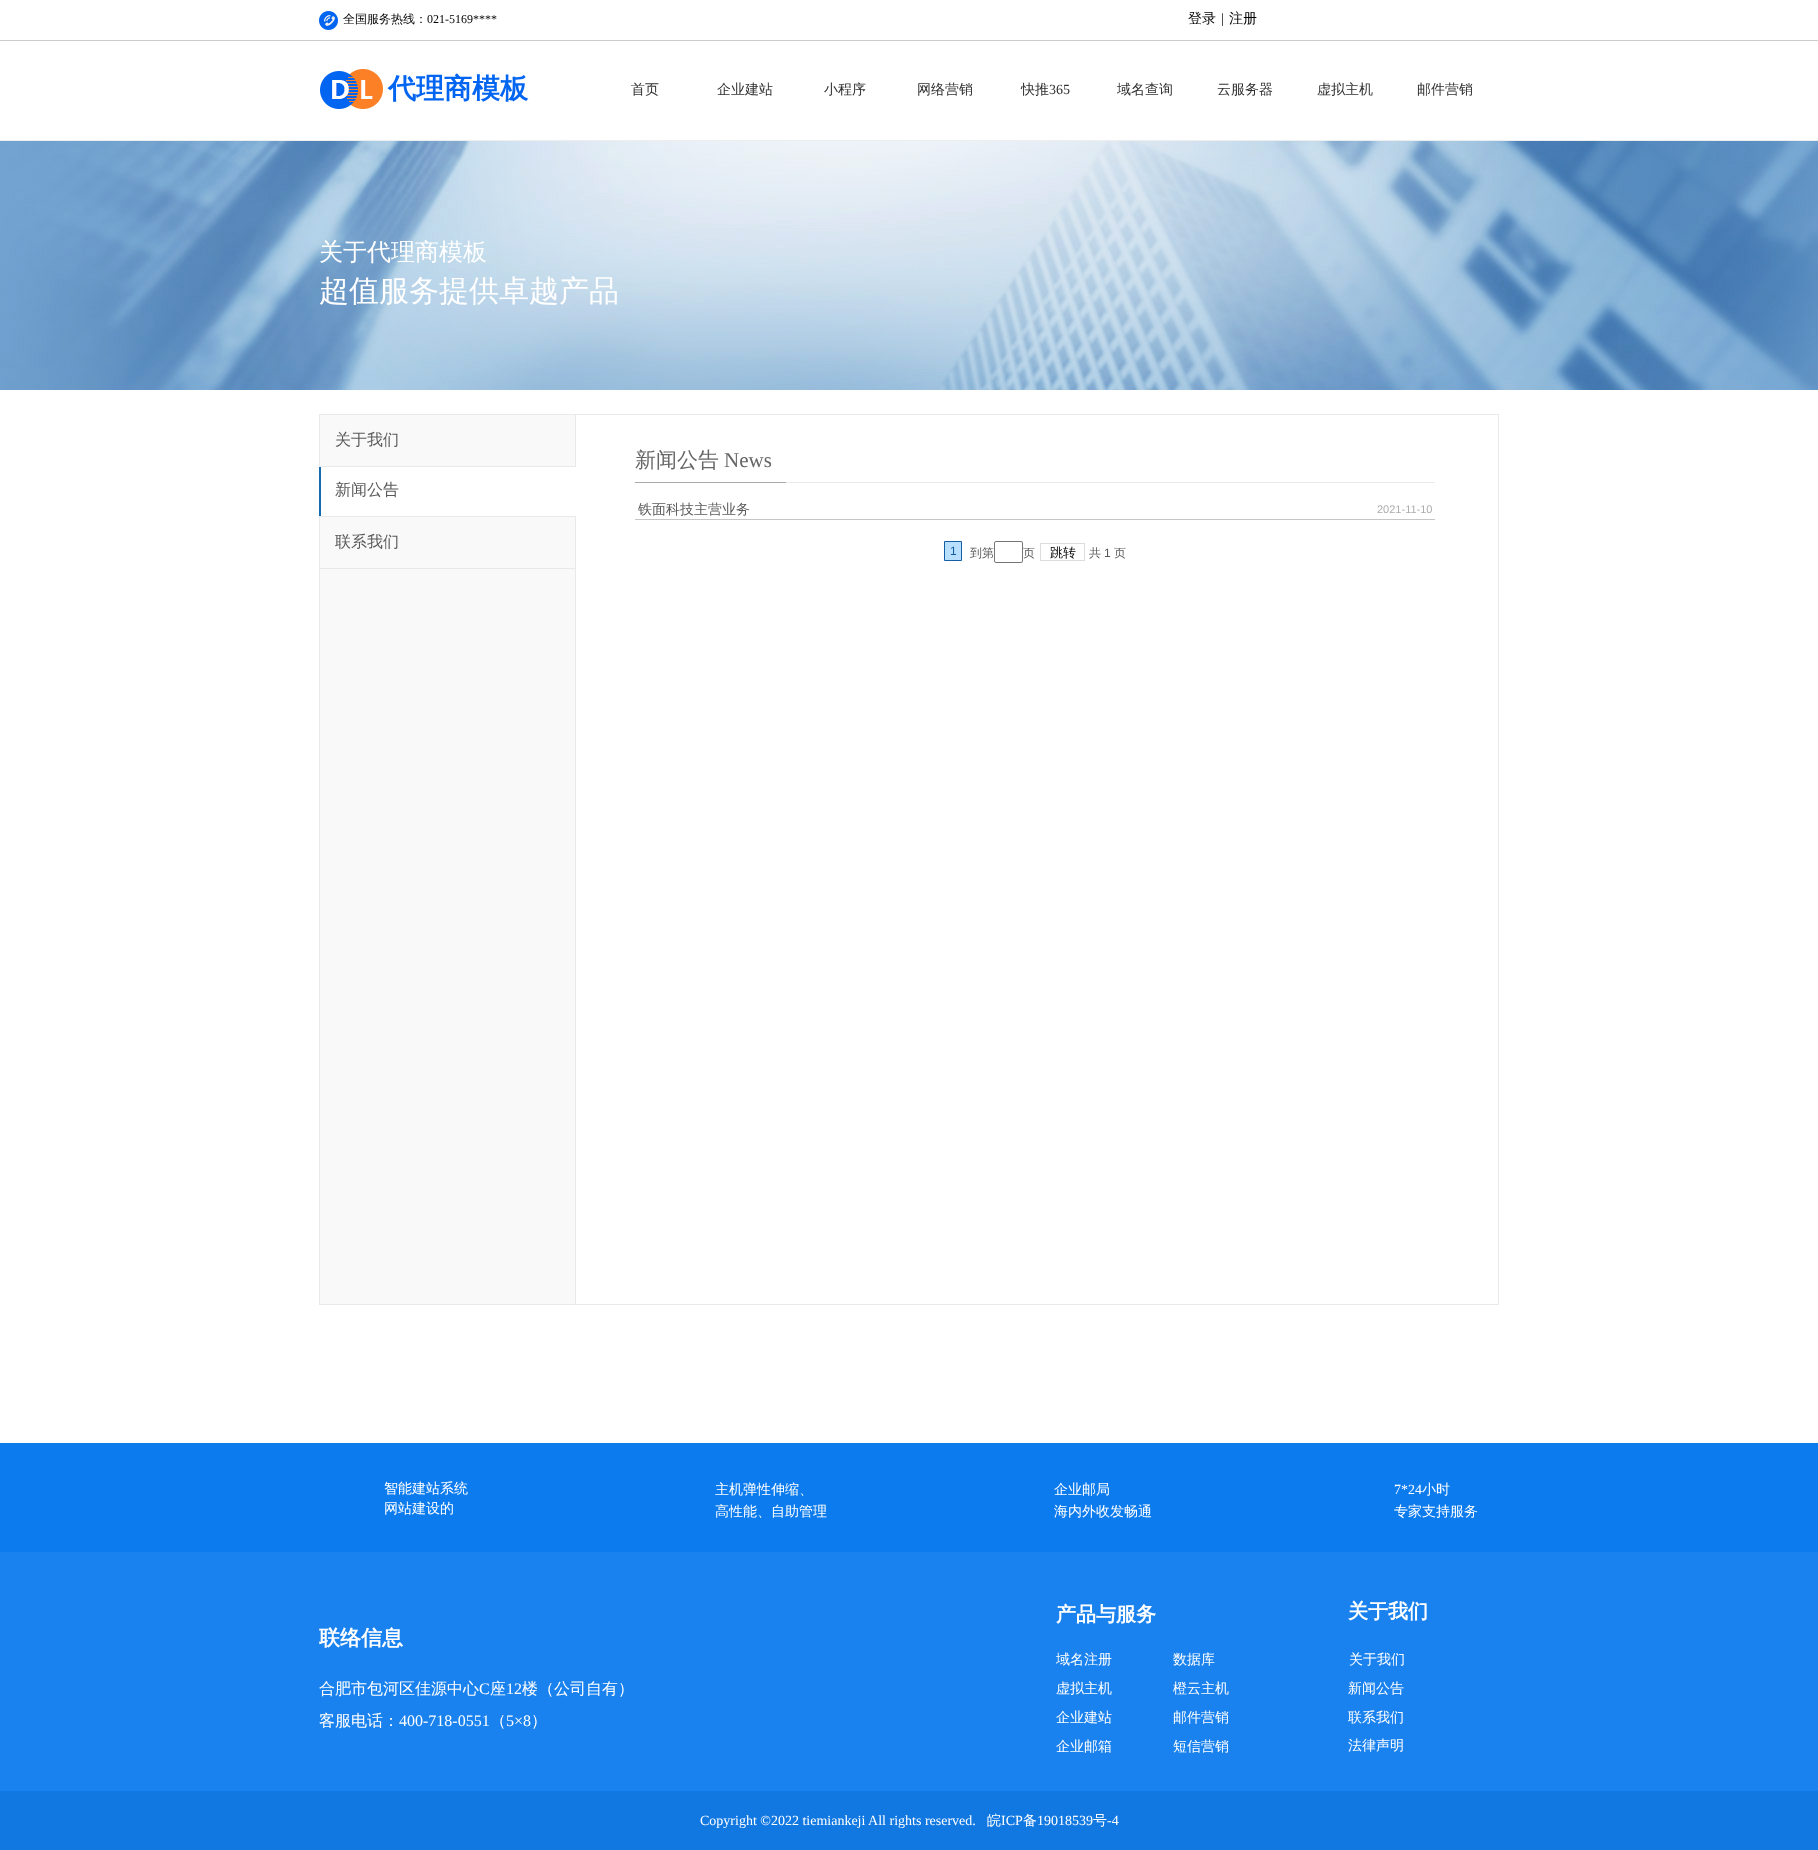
(async () => {
const canvas = document.querySelector("canvas")
canvas.width = 1818
canvas.height = 1850
const c = canvas.getContext("2d")
c.miterLimit = 4
c.fontKerning = "normal"
function T(s,x,y){c.fillText(s,x,y)}
function R(x,y,w,h){c.fillRect(x,y,w,h)}
async function I(src,x,y,w,h){const img=new Image();img.src=src;await img.decode();c.drawImage(img,x,y,w,h)}
c.fillStyle="#fff"
R(0,0,1818,1850)
await I("1.png",319,11,19,19)
c.font="500 12px WenQuanYi Zen Hei"
c.fillStyle="#000"
T("全国服务热线：",343,23)
c.font="12px Liberation Serif"
T("021-5169****",427,23)
c.font="500 14px WenQuanYi Zen Hei"
T("登录",1188,23)
c.font="14px Liberation Serif"
T("|",1221,23)
c.font="500 14px WenQuanYi Zen Hei"
T("注册",1229,23)
c.fillStyle="#ccc"
R(0,40,1818,1)
await I("2.png",320,69,63,40)
c.font="bold 28px WenQuanYi Zen Hei"
c.fillStyle="#0165f1"
T("代理商模板",388,98)
c.font="500 14px WenQuanYi Zen Hei"
c.fillStyle="#303030"
T("首页",631,94)
T("企业建站",717,94)
T("小程序",824,94)
T("网络营销",917,94)
T("快推",1021,94)
c.font="14px Liberation Serif"
T("365",1049,94)
c.font="500 14px WenQuanYi Zen Hei"
T("域名查询",1117,94)
T("云服务器",1217,94)
T("虚拟主机",1317,94)
T("邮件营销",1417,94)
c.fillStyle="#eee"
R(0,140,1818,1)
await I("3.png",0,141,1818,249)
c.font="500 24px WenQuanYi Zen Hei"
c.fillStyle="#fff"
T("关于代理商模板",319,260)
c.font="500 30px WenQuanYi Zen Hei"
T("超值服务提供卓越产品",319,301)
c.strokeStyle="#e9e9e9"
c.strokeRect(319.5,414.5,1179,890)
c.fillStyle="#f9f9f9"
R(320,415,255,889)
c.fillStyle="#e9e9e9"
R(575,415,1,889)
R(319,466,257,1)
c.font="500 16px WenQuanYi Zen Hei"
c.fillStyle="#5a5a5a"
T("关于我们",335,445)
c.fillStyle="#aaa"
R(635,482,151,1)
c.font="500 21px WenQuanYi Zen Hei"
c.fillStyle="#666"
T("新闻公告",635,467)
c.font="21px Liberation Serif"
T("News",724,467)
c.fillStyle="#fff"
R(321,467,255,50)
c.fillStyle="#146bae"
R(319,467,2,50)
c.fillStyle="#e9e9e9"
R(319,516,257,1)
c.font="500 16px WenQuanYi Zen Hei"
c.fillStyle="#5a5a5a"
T("新闻公告",335,495)
c.fillStyle="#e9e9e9"
R(786,482,649,1)
R(319,568,257,1)
c.fillStyle="#5a5a5a"
T("联系我们",335,547)
c.font="500 14px WenQuanYi Zen Hei"
T("铁面科技主营业务",638,514)
c.font="11px Liberation Sans"
c.fillStyle="#acacac"
T("2021-11-10",1377,513)
c.fillStyle="#c6c6c6"
R(635,519,800,1)
c.fillStyle="#b9dfff"
c.beginPath()
c.rect(944.5,541.5,17,19)
c.fill()
c.strokeStyle="#125fa5"
c.stroke()
c.font="12px Liberation Sans"
c.fillStyle="#125fa5"
T("1",950,555)
c.font="500 12px WenQuanYi Zen Hei"
c.fillStyle="#5a5a5a"
T("到第",970,557)
c.beginPath()
c.roundRect(994.5,541.5,28,21,1.5)
c.strokeStyle="#767676"
c.stroke()
T("页",1023,557)
c.strokeStyle="#ddd"
c.strokeRect(1040.5,543.5,44,17)
c.font="500 13px WenQuanYi Zen Hei"
c.fillStyle="#000"
T("跳转",1050,557)
c.font="500 12px WenQuanYi Zen Hei"
c.fillStyle="#5a5a5a"
T("共",1089,557)
c.font="12px Liberation Sans"
T("1",1104,557)
c.font="500 12px WenQuanYi Zen Hei"
T("页",1114,557)
c.fillStyle="#0c7bee"
R(0,1443,1818,109)
c.font="500 14px WenQuanYi Zen Hei"
c.fillStyle="#fff"
T("智能建站系统",384,1493)
T("网站建设的",384,1513)
T("主机弹性伸缩、",715,1494)
T("高性能、自助管理",715,1516)
T("企业邮局",1054,1494)
T("海内外收发畅通",1054,1516)
c.font="14px Liberation Serif"
T("7*24",1394,1494)
c.font="500 14px WenQuanYi Zen Hei"
T("小时",1422,1494)
T("专家支持服务",1394,1516)
c.fillStyle="#1a82ee"
R(0,1552,1818,239)
c.font="bold 20px WenQuanYi Zen Hei"
c.fillStyle="#fff"
T("产品与服务",1056,1621)
T("关于我们",1348,1618)
c.font="bold 21px WenQuanYi Zen Hei"
T("联络信息",319,1645)
c.font="500 14px WenQuanYi Zen Hei"
T("域名注册",1056,1664)
T("数据库",1173,1664)
T("关于我们",1349,1664)
c.font="500 16px WenQuanYi Zen Hei"
T("合肥市包河区佳源中心",319,1694)
c.font="16px Liberation Serif"
T("C",479,1694)
c.font="500 16px WenQuanYi Zen Hei"
T("座",490,1694)
c.font="16px Liberation Serif"
T("12",506,1694)
c.font="500 16px WenQuanYi Zen Hei"
T("楼（公司自有）",522,1694)
T("客服电话：",319,1726)
c.font="16px Liberation Serif"
T("400-718-0551",399,1726)
c.font="500 16px WenQuanYi Zen Hei"
T("（",490,1726)
c.font="16px Liberation Serif"
T("5×8",506,1726)
c.font="500 16px WenQuanYi Zen Hei"
T("）",531,1726)
c.font="500 14px WenQuanYi Zen Hei"
T("虚拟主机",1056,1693)
T("橙云主机",1173,1693)
T("新闻公告",1348,1693)
T("企业建站",1056,1722)
T("邮件营销",1173,1722)
T("联系我们",1348,1722)
T("企业邮箱",1056,1751)
T("短信营销",1173,1751)
T("法律声明",1348,1750)
c.fillStyle="#1178e2"
R(0,1791,1818,59)
c.font="14px Liberation Serif"
c.fillStyle="#fff"
T("Copyright ©2022 tiemiankeji All rights reserved.",700,1825)
c.font="500 14px WenQuanYi Zen Hei"
T("皖",987,1825)
c.font="14px Liberation Serif"
T("ICP",1001,1825)
c.font="500 14px WenQuanYi Zen Hei"
T("备",1023,1825)
c.font="14px Liberation Serif"
T("19018539",1037,1825)
c.font="500 14px WenQuanYi Zen Hei"
T("号",1093,1825)
c.font="14px Liberation Serif"
T("-4",1107,1825)
})()
